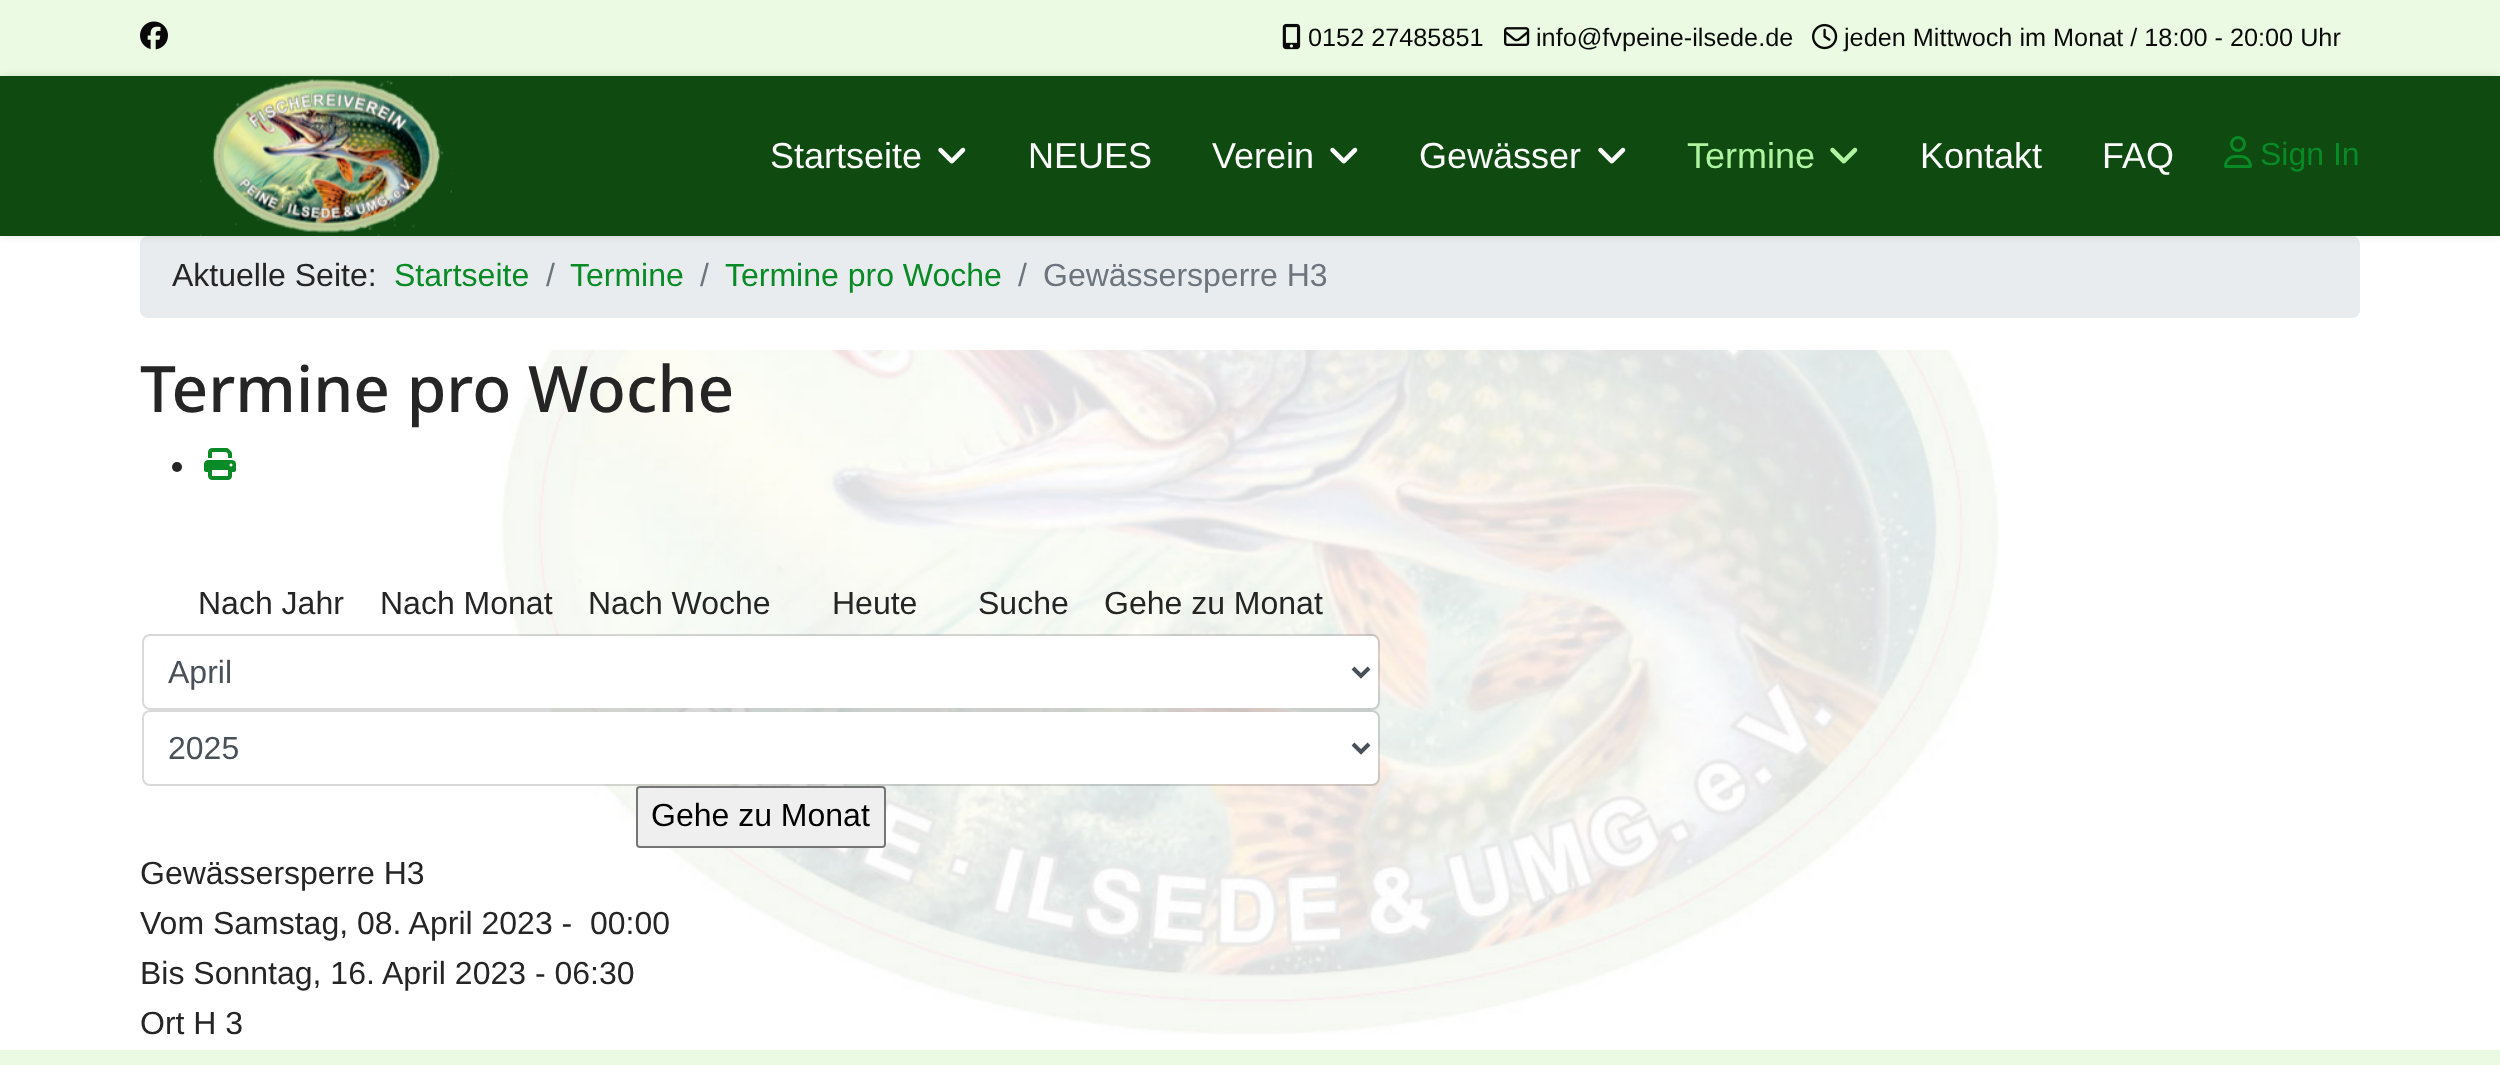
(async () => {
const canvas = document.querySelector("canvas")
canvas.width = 2500
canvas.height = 1065
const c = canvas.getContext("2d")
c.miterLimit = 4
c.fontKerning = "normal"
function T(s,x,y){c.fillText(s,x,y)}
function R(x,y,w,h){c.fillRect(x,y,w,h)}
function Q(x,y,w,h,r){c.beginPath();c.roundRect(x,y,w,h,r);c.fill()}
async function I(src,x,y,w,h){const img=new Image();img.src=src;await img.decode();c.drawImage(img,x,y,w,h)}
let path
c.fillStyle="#fff"
R(0,0,2500,1065)
c.fillStyle="#ebfae3"
R(0,0,2500,76)
await I("1.png",140,21,28,29)
await I("2.png",1282,23,19,27)
c.font="25.25px Liberation Sans"
c.fillStyle="#0a0909"
T("0152 27485851",1308,46)
await I("3.png",1504,27,26,19)
T("info@fvpeine-ilsede.de",1536,46)
await I("4.png",1812,23,26,27)
T("jeden Mittwoch im Monat / 18:00 - 20:00 Uhr",1844,46)
c.fillStyle="#e9ecef"
Q(140,236,2220,82,8)
c.fillStyle="#0000001a"
c.filter="blur(4px)"
c.beginPath()
c.rect(0,76,2500,160)
c.fill()
c.filter="none"
c.fillStyle="#0f4a11"
R(0,76,2500,160)
await I("5.png",200,76,252,160)
c.font="36px Liberation Sans"
c.fillStyle="#fcfcfc"
T("Startseite",770,168)
await I("6.png",938,147,28,17)
T("NEUES",1028,168)
T("Verein",1212,168)
await I("6.png",1330,147,28,17)
T("Gewässer",1419,168)
await I("6.png",1598,147,28,17)
c.fillStyle="#aff5a1"
T("Termine",1687,168)
await I("7.png",1830,147,28,17)
c.fillStyle="#fcfcfc"
T("Kontakt",1920,168)
T("FAQ",2102,168)
await I("8.png",2224,136,28,32)
c.font="32px Liberation Sans"
c.fillStyle="#088a26"
T("Sign In",2260,165)
c.fillStyle="#252525"
T("Aktuelle Seite:",172,286)
c.fillStyle="#088a26"
T("Startseite",394,286)
c.fillStyle="#6c757d"
T("/",546,286)
c.fillStyle="#088a26"
T("Termine",570,286)
c.fillStyle="#6c757d"
T("/",700,286)
c.fillStyle="#088a26"
T("Termine pro Woche",725,286)
c.fillStyle="#6c757d"
T("/",1018,286)
T("Gewässersperre H3",1043,286)
await I("9.png",501,350,1497,685)
c.font="500 64px Noto Sans"
c.fillStyle="#252525"
T("Termine pro Woche",140,412)
c.beginPath()
c.arc(177,467,5,0,7)
c.fill()
await I("10.png",204,448,32,32)
c.font="32px Liberation Sans"
T("Nach Jahr",198,614)
T("Nach Monat",380,614)
T("Nach Woche",588,614)
T("Heute",832,614)
T("Suche",978,614)
T("Gehe zu Monat",1104,614)
c.fillStyle="#fff"
Q(144,636,1234,72,6)
c.beginPath()
c.roundRect(143,635,1236,74,7)
c.strokeStyle="#00000026"
c.lineWidth=2
c.stroke()
path = new Path2D("M1353 668l8 8l8-8")
c.strokeStyle="#495057"
c.lineWidth=4
c.stroke(path)
c.fillStyle="#495057"
T("April",168,683)
c.fillStyle="#fff"
Q(144,712,1234,72,6)
c.beginPath()
c.roundRect(143,711,1236,74,7)
c.strokeStyle="#00000026"
c.lineWidth=2
c.stroke()
path = new Path2D("M1353 744l8 8l8-8")
c.strokeStyle="#495057"
c.lineWidth=4
c.stroke(path)
c.fillStyle="#495057"
T("2025",168,759)
c.fillStyle="#efefef"
c.beginPath()
c.roundRect(637,787,248,60,3)
c.fill()
c.strokeStyle="#767676"
c.lineWidth=2
c.stroke()
c.fillStyle="#000"
T("Gehe zu Monat",651,826)
c.fillStyle="#252525"
T("Gewässersperre H3",140,884)
T("Vom Samstag, 08. April 2023 -  00:00",140,934)
T("Bis Sonntag, 16. April 2023 - 06:30",140,984)
T("Ort H 3",140,1034)
c.fillStyle="#ebfae3"
R(0,1050,2500,15)
})()
